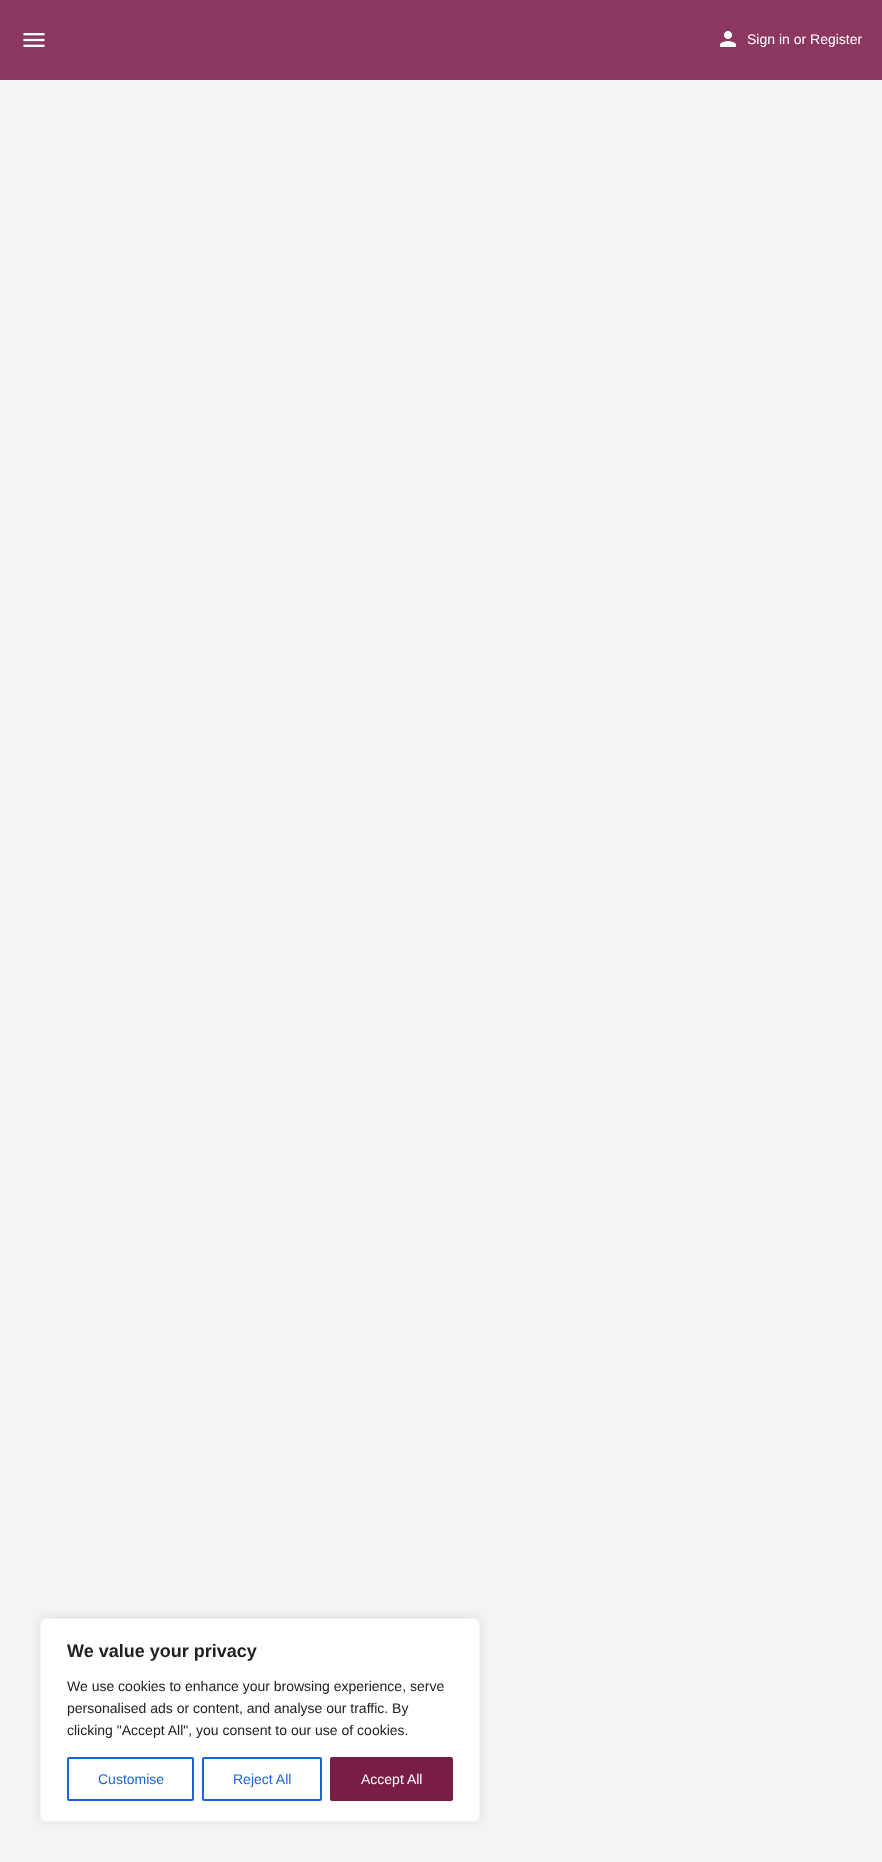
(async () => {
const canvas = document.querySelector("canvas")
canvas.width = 882
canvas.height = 1862
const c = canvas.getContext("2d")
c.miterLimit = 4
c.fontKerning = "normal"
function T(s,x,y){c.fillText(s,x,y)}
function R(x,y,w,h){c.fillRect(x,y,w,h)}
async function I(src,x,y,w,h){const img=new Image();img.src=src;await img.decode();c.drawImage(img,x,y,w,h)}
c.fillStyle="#f4f4f4"
R(0,0,882,1862)
c.fillStyle="#8c375f"
R(0,0,882,80)
await I("1.png",23,33,22,14)
await I("2.png",720,31,16,16)
c.font="14px Liberation Sans"
c.fillStyle="#fff"
T("Sign in or Register",747,44)
c.fillStyle="#acabab4d"
c.filter="blur(5px)"
c.beginPath()
c.roundRect(40,1617,440,204,6)
c.fill()
c.filter="none"
c.fillStyle="#fff"
c.beginPath()
c.roundRect(40.5,1618.5,439,203,5.5)
c.fill()
c.strokeStyle="#f4f4f4"
c.stroke()
c.font="bold 18px Liberation Sans"
c.fillStyle="#212121"
T("We value your privacy",67,1657)
c.font="14px Liberation Sans"
T("We use cookies to enhance your browsing experience, serve",67,1691)
T("personalised ads or content, and analyse our traffic. By",67,1713)
T("clicking \"Accept All\", you consent to our use of cookies.",67,1735)
c.beginPath()
c.roundRect(68,1758,125,42,1)
c.strokeStyle="#1863dc"
c.lineWidth=2
c.stroke()
c.fillStyle="#1863dc"
T("Customise",98,1784)
c.beginPath()
c.roundRect(203,1758,118,42,1)
c.stroke()
T("Reject All",233,1784)
c.fillStyle="#781e46"
c.beginPath()
c.roundRect(331,1758,121,42,1)
c.fill()
c.strokeStyle="#781e46"
c.stroke()
c.fillStyle="#fff"
T("Accept All",361,1784)
})()
